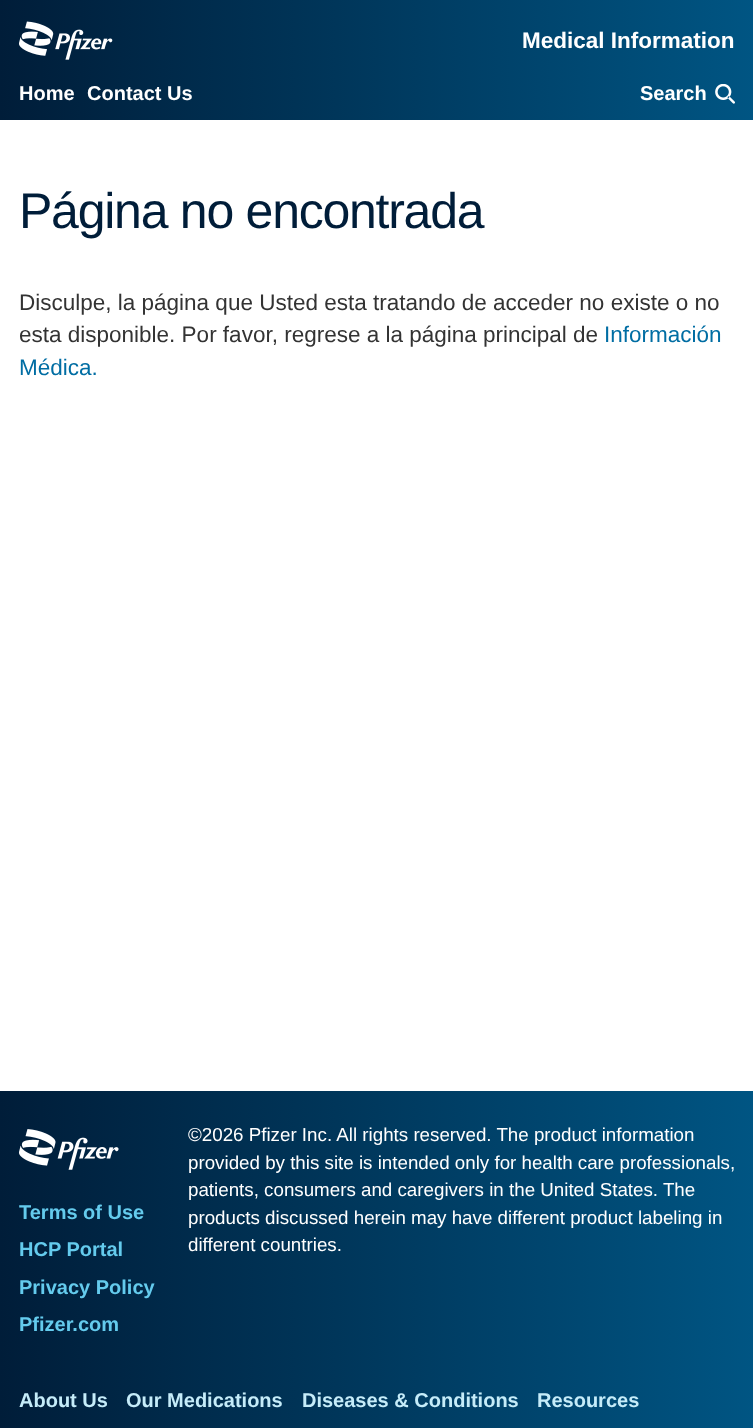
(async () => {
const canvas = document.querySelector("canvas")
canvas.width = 753
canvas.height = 1428
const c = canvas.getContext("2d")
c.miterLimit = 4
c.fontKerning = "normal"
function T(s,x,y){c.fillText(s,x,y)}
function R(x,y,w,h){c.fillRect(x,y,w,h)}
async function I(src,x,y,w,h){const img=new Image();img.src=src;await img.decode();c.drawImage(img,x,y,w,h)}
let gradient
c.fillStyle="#fff"
R(0,0,753,1428)
gradient = c.createLinearGradient(0,60,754,60)
gradient.addColorStop(0,"#001d39")
gradient.addColorStop(1,"#005583")
c.fillStyle = gradient
R(0,0,753,120)
await I("1.png",19,21,94,39)
c.font="bold 22.5px Liberation Sans"
c.fillStyle="#fff"
T("Medical Information",522,48)
c.font="bold 20px Liberation Sans"
T("Home",19,100)
T("Contact Us",87,100)
T("Search",640,100)
await I("2.png",715,84,20,20)
gradient = c.createLinearGradient(0,1260,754,1260)
gradient.addColorStop(0,"#001d39")
gradient.addColorStop(1,"#005583")
c.fillStyle = gradient
R(0,1091,753,337)
c.fillStyle="#c5ecf9"
T("About Us",19,1407)
T("Our Medications",126,1407)
T("Diseases & Conditions",302,1407)
T("Resources",537,1407)
c.letterSpacing="-1.25px"
c.font="50px Liberation Sans"
c.fillStyle="#001d39"
T("Página no encontrada",19,228)
c.letterSpacing="0px"
c.font="22.5px Liberation Sans"
c.fillStyle="#333"
T("Disculpe, la página que Usted esta tratando de acceder no existe o no",19,310)
T("esta disponible. Por favor, regrese a la página principal de",19,342)
c.fillStyle="#006da3"
T("Información",604,342)
T("Médica.",19,375)
c.font="18.75px Liberation Sans"
c.fillStyle="#fff"
T("©2026 Pfizer Inc. All rights reserved. The product information",188,1141)
T("provided by this site is intended only for health care professionals,",188,1169)
T("patients, consumers and caregivers in the United States. The",188,1196)
T("products discussed herein may have different product labeling in",188,1224)
T("different countries.",188,1251)
await I("3.png",19,1129,100,41)
c.font="bold 20px Liberation Sans"
c.fillStyle="#64cbed"
T("Terms of Use",19,1219)
T("HCP Portal",19,1256)
T("Privacy Policy",19,1294)
T("Pfizer.com",19,1331)
})()
